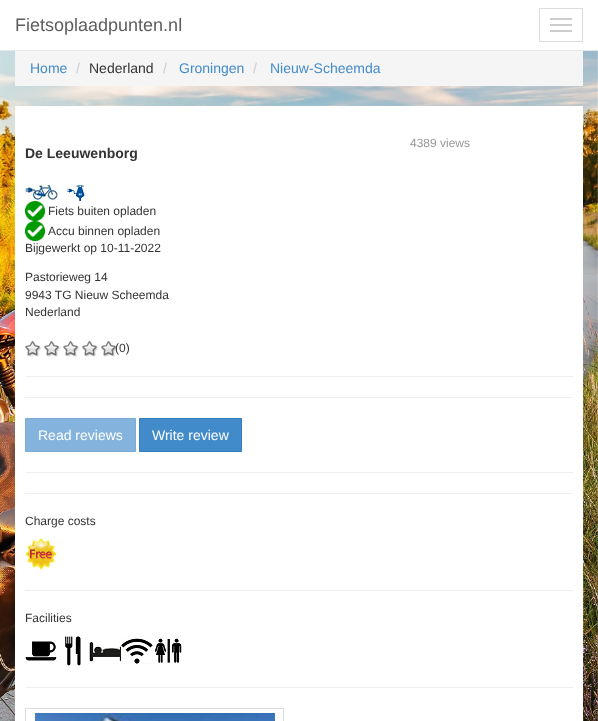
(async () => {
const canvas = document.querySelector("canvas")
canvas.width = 598
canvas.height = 721
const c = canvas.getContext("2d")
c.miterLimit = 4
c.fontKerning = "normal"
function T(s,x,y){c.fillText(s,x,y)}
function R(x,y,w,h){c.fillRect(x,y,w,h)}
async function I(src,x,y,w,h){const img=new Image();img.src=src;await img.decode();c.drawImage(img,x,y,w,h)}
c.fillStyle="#fff"
R(0,0,598,721)
await I("1.png",0,51,598,670)
c.fillStyle="#e7e7e7"
R(0,50,598,1)
c.font="18px Liberation Sans"
c.fillStyle="#5e5e5e"
T("Fietsoplaadpunten.nl",15,31)
c.strokeStyle="#ddd"
c.strokeRect(539.5,8.5,43,33)
c.fillStyle="#ccc"
R(550,18,22,2)
R(550,24,22,2)
R(550,30,22,2)
c.fillStyle="#f5f5f5"
R(15,51,568,35)
c.font="14px Liberation Sans"
c.fillStyle="#428bca"
T("Home",30,73)
c.fillStyle="#ccc"
T("/",76,73)
c.fillStyle="#333"
T("Nederland",89,73)
c.fillStyle="#ccc"
T("/",163,73)
c.fillStyle="#428bca"
T("Groningen",179,73)
c.fillStyle="#ccc"
T("/",253,73)
c.fillStyle="#428bca"
T("Nieuw-Scheemda",270,73)
c.fillStyle="#fff"
R(15,106,568,615)
c.font="12px Liberation Sans"
c.fillStyle="#999"
T("4389 views",410,147)
c.font="bold 14px Liberation Sans"
c.fillStyle="#333"
T("De Leeuwenborg",25,158)
await I("2.png",25,185,33,15)
await I("3.png",67,185,18,16)
await I("4.png",25,201,20,20)
c.font="12px Liberation Sans"
T("Fiets buiten opladen",48,215)
await I("4.png",25,221,20,20)
T("Accu binnen opladen",48,235)
T("Bijgewerkt op 10-11-2022",25,252)
T("Pastorieweg 14",25,281)
T("9943 TG Nieuw Scheemda",25,299)
T("Nederland",25,316)
await I("5.png",25,341,92,16)
T("(0)",115,352)
c.fillStyle="#eee"
R(25,376,548,1)
R(25,397,548,1)
c.fillStyle="#84b4dd"
c.beginPath()
c.rect(25.5,418.5,110,33)
c.fill()
c.strokeStyle="#7cabd4"
c.stroke()
c.font="14px Liberation Sans"
c.fillStyle="#fff"
T("Read reviews",38,440)
c.fillStyle="#428bca"
c.beginPath()
c.rect(139.5,418.5,102,33)
c.fill()
c.strokeStyle="#357ebd"
c.stroke()
c.fillStyle="#fff"
T("Write review",152,440)
c.fillStyle="#eee"
R(25,472,548,1)
R(25,493,548,1)
c.font="12px Liberation Sans"
c.fillStyle="#333"
T("Charge costs",25,525)
await I("6.png",25,538,32,32)
c.fillStyle="#eee"
R(25,590,548,1)
c.fillStyle="#333"
T("Facilities",25,622)
await I("7.png",25,641,32,20)
await I("8.png",65,636,16,30)
await I("9.png",89,642,32,20)
await I("10.png",121,638,32,26)
await I("11.png",155,638,27,25)
c.fillStyle="#eee"
R(25,687,548,1)
c.strokeStyle="#ddd"
c.strokeRect(25.5,708.5,258,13)
await I("12.png",35,713,240,8)
})()
